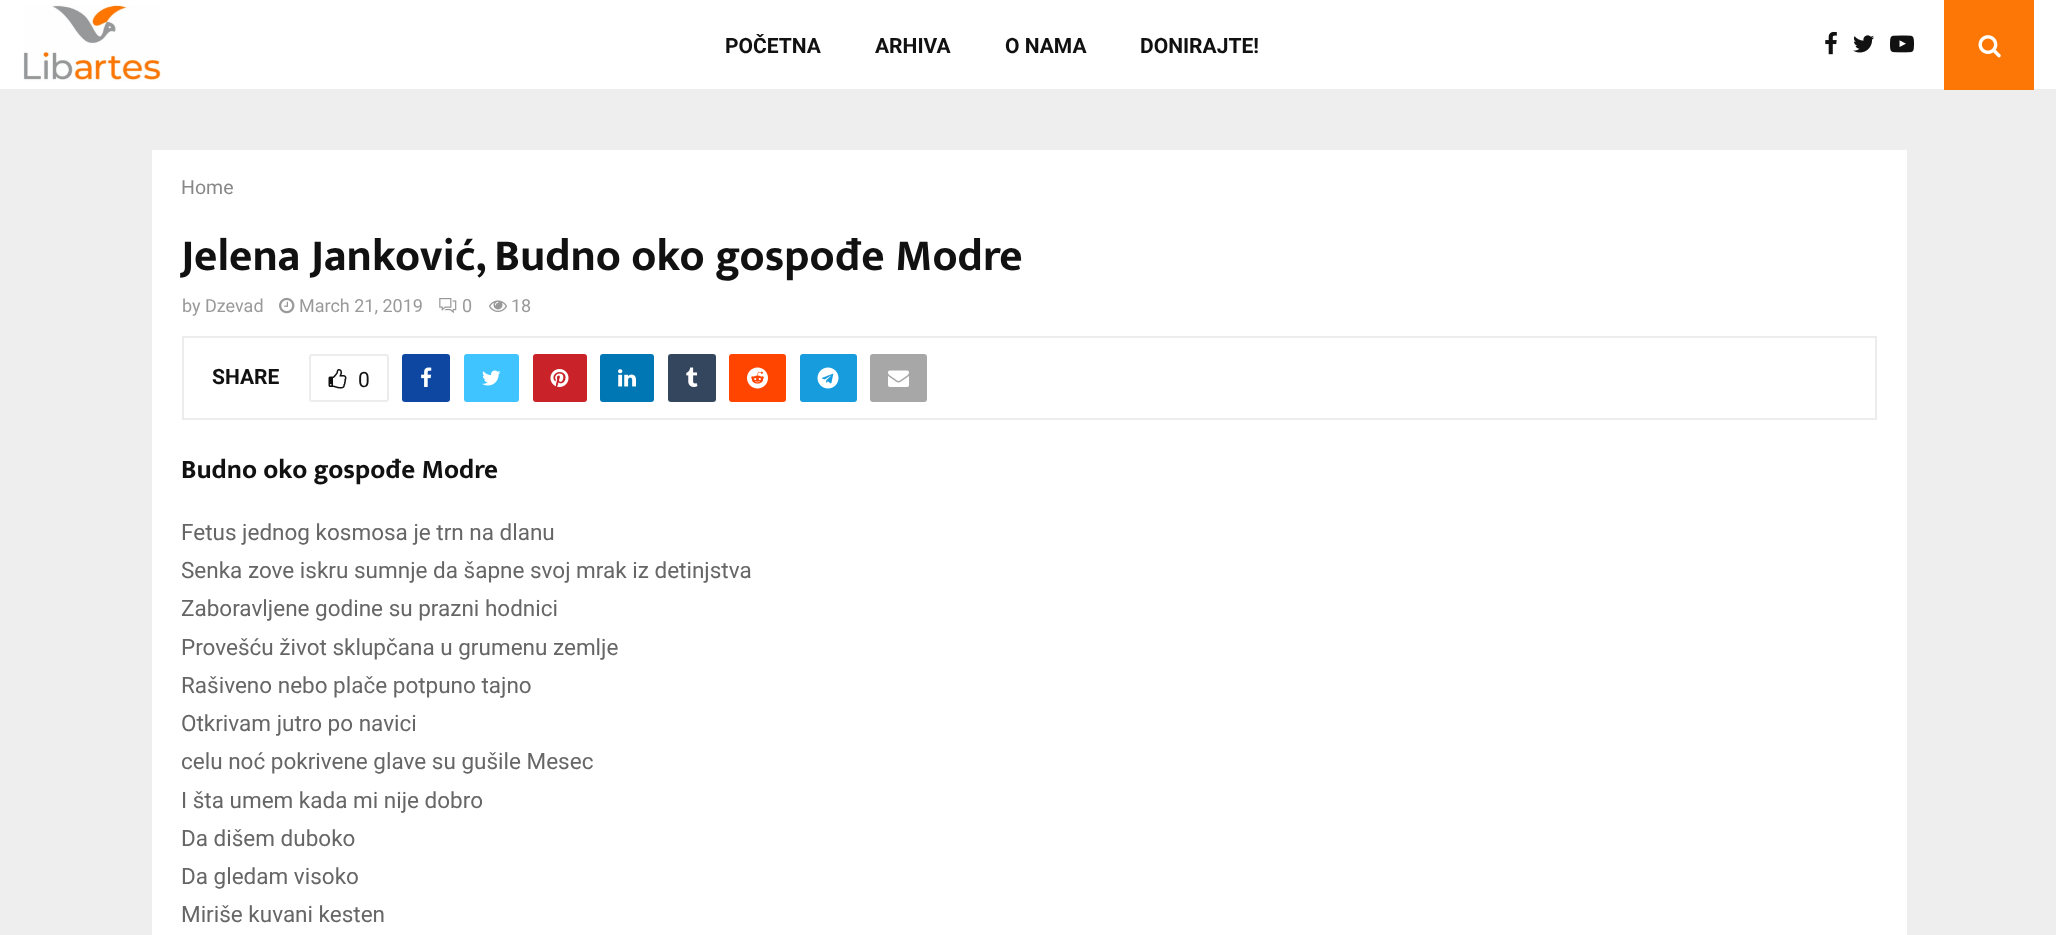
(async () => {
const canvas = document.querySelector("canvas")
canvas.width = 2056
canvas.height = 935
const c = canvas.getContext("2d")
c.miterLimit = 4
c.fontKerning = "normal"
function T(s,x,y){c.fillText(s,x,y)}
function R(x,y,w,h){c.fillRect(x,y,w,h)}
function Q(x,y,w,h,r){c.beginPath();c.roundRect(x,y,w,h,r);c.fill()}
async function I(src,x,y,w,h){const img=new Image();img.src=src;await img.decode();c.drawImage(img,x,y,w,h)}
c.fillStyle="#eee"
R(0,0,2056,935)
c.fillStyle="#fff"
R(0,0,2056,89)
await I("1.png",23,5,138,76)
c.font="bold 21px Roboto"
c.fillStyle="#111"
T("POČETNA",725,53)
T("ARHIVA",875,53)
T("O NAMA",1005,53)
T("DONIRAJTE!",1140,53)
await I("2.png",1825,31,12,24)
await I("3.png",1853,35,21,18)
await I("4.png",1890,35,24,18)
c.fillStyle="#fc7705"
R(1944,0,90,90)
await I("5.png",1978,35,23,23)
c.fillStyle="#fff"
R(152,150,1755,785)
c.font="19.5px Roboto"
c.fillStyle="#888"
T("Home",181,194)
c.font="bold 45px Mukta Vaani"
c.fillStyle="#111"
T("Jelena Janković, Budno oko gospođe Modre",181,270)
c.font="18px Roboto"
c.fillStyle="#999"
T("by Dzevad",182,312)
await I("6.png",279,297,16,17)
T("March 21, 2019",299,312)
await I("7.png",439,298,18,16)
T("0",462,312)
await I("8.png",489,300,18,12)
T("18",511,312)
c.strokeStyle="#ececec"
c.lineWidth=2
c.strokeRect(183,337,1693,82)
c.font="bold 21px Roboto"
c.fillStyle="#111"
T("SHARE",212,384)
c.beginPath()
c.roundRect(310,355,78,46,2)
c.stroke()
await I("9.png",328,369,19,20)
c.font="21px Roboto"
T("0",358,387)
c.fillStyle="#0d47a1"
Q(402,354,48,48,3)
await I("10.png",421,367,11,20)
c.fillStyle="#40c4ff"
Q(464,354,55,48,3)
await I("11.png",482,370,19,16)
c.fillStyle="#c92228"
Q(533,354,54,48,3)
await I("12.png",550,369,19,18)
c.fillStyle="#0077b5"
Q(600,354,54,48,3)
await I("13.png",618,369,18,18)
c.fillStyle="#34465d"
Q(668,354,48,48,3)
await I("14.png",686,367,12,20)
c.fillStyle="#ff4500"
Q(729,354,57,48,3)
await I("15.png",747,367,21,22)
c.fillStyle="#179cde"
Q(800,354,57,48,3)
await I("16.png",817,367,22,22)
c.fillStyle="#a7a7a7"
Q(870,354,57,48,3)
await I("17.png",888,370,21,17)
c.font="bold 27px Mukta Vaani"
c.fillStyle="#111"
T("Budno oko gospođe Modre",181,478)
c.font="22.5px Roboto"
c.fillStyle="#666"
T("Fetus jednog kosmosa je trn na dlanu",181,540)
T("Senka zove iskru sumnje da šapne svoj mrak iz detinjstva",181,578)
T("Zaboravljene godine su prazni hodnici",181,616)
T("Provešću život sklupčana u grumenu zemlje",181,655)
T("Rašiveno nebo plače potpuno tajno",181,693)
T("Otkrivam jutro po navici",181,731)
T("celu noć pokrivene glave su gušile Mesec",181,769)
T("I šta umem kada mi nije dobro",181,808)
T("Da dišem duboko",181,846)
T("Da gledam visoko",181,884)
T("Miriše kuvani kesten",181,922)
})()
